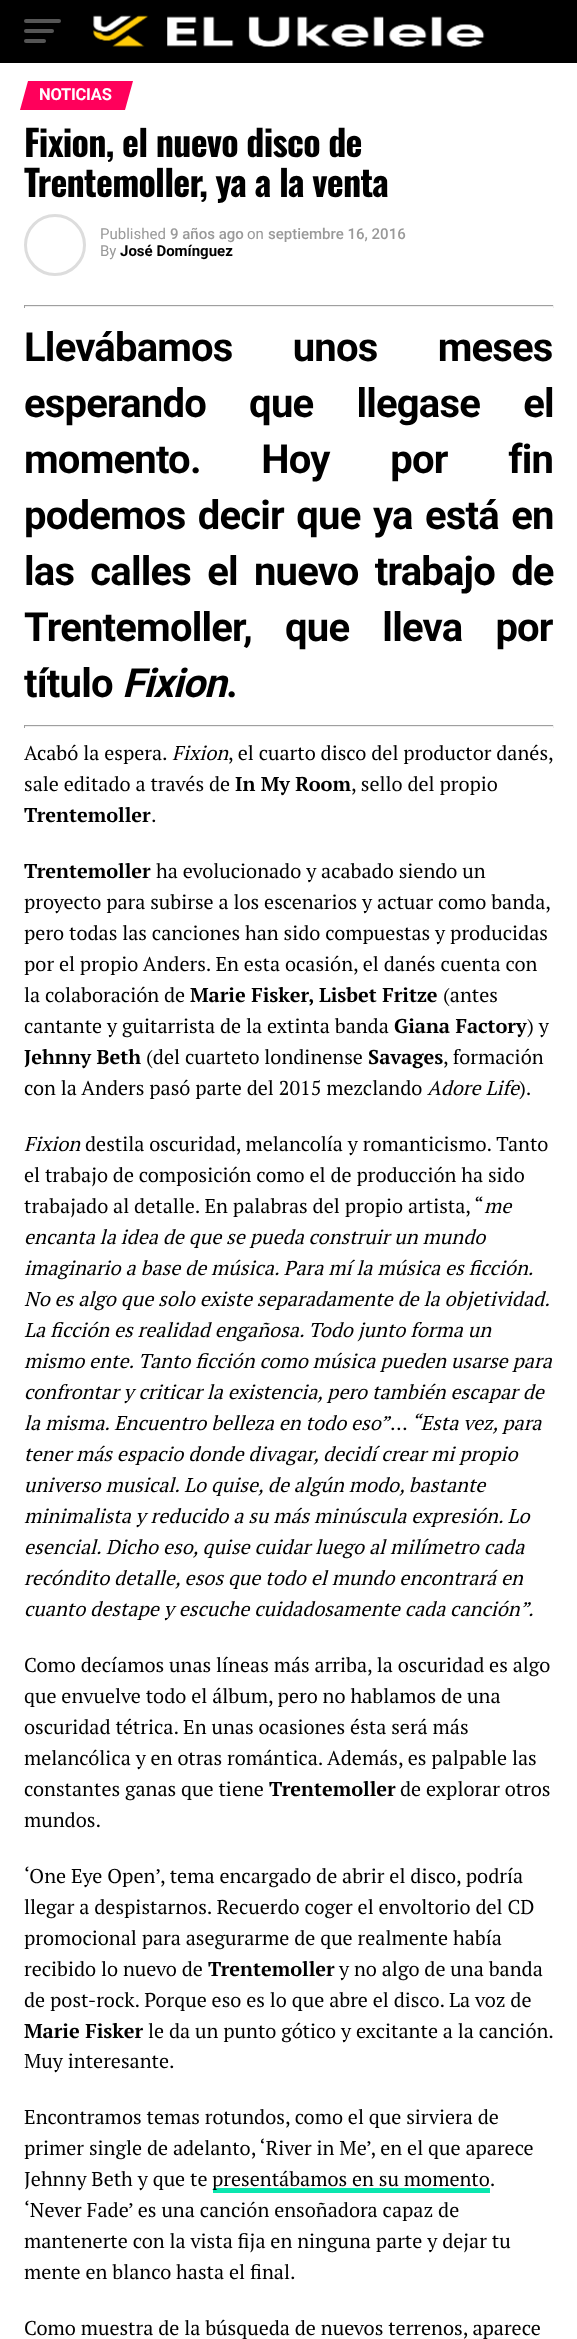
(async () => {
const canvas = document.querySelector("canvas")
canvas.width = 577
canvas.height = 2339
const c = canvas.getContext("2d")
c.miterLimit = 4
c.fontKerning = "normal"
function T(s,x,y){c.fillText(s,x,y)}
function R(x,y,w,h){c.fillRect(x,y,w,h)}
function Q(x,y,w,h,r){c.beginPath();c.roundRect(x,y,w,h,r);c.fill()}
async function I(src,x,y,w,h){const img=new Image();img.src=src;await img.decode();c.drawImage(img,x,y,w,h)}
let path
c.fillStyle="#fff"
R(0,0,577,2339)
c.fillStyle="#000"
R(0,0,577,63)
c.fillStyle="#555"
Q(24,19,37,4,2)
Q(24,29,30,4,2)
Q(24,39,22,4,2)
await I("1.png",93,15,392,32)
c.fillStyle="#ff005b"
path = new Path2D("M28 81h105l-8 29h-105z")
c.fill(path)
c.letterSpacing="-0.25px"
c.font="bold 16.5px Roboto"
c.fillStyle="#fff"
T("NOTICIAS",39,100)
c.letterSpacing="-0.75px"
c.font="bold 36px Oswald"
c.fillStyle="#000"
T("Fixion, el nuevo disco de",24,157)
T("Trentemoller, ya a la venta",24,197)
c.beginPath()
c.arc(55,245,29.5,0,7)
c.strokeStyle="#ddd"
c.lineWidth=3
c.stroke()
c.letterSpacing="0px"
c.font="15px Roboto"
c.fillStyle="#999"
T("Published",100,239)
c.font="500 15px Roboto"
T("9 años ago",170,239)
c.font="15px Roboto"
T("on",247,239)
c.font="500 15px Roboto"
T("septiembre 16, 2016",268,239)
c.font="15px Roboto"
T("By",100,256)
c.font="bold 15px Roboto"
c.fillStyle="#000"
T("José Domínguez",120,256)
c.fillStyle="#9f9f9f"
R(24,305,530,1)
c.fillStyle="#eee"
R(553,305,1,3)
R(24,306,530,1)
c.fillStyle="#9f9f9f"
R(24,305,1,3)
c.letterSpacing="-0.8px"
c.wordSpacing="51px"
c.font="bold 40px Roboto"
c.fillStyle="#000"
T("Llevábamos unos meses",24,361)
c.wordSpacing="34px"
T("esperando que llegase el",24,417)
c.wordSpacing="51.5px"
T("momento. Hoy por fin",24,473)
c.wordSpacing="3.25px"
T("podemos decir que ya está en",24,529)
c.wordSpacing="7px"
T("las calles el nuevo trabajo de",24,585)
c.wordSpacing="24px"
T("Trentemoller, que lleva por",24,641)
c.wordSpacing="0px"
T("título",24,697)
c.font="italic bold 40px Roboto"
T("Fixion",122,697)
c.font="bold 40px Roboto"
T(".",226,697)
c.fillStyle="#9f9f9f"
R(24,725,530,1)
c.fillStyle="#eee"
R(553,725,1,3)
R(24,726,530,1)
c.fillStyle="#9f9f9f"
R(24,725,1,3)
c.letterSpacing="0px"
c.font="20px PT Serif"
c.fillStyle="#000"
T("Acabó la espera.",24,760)
c.font="italic 20px PT Serif"
T("Fixion",172,760)
c.font="20px PT Serif"
T(", el cuarto disco del productor danés,",228,760)
T("sale editado a través de",24,791)
c.font="bold 20px PT Serif"
T("In My Room",235,791)
c.font="20px PT Serif"
T(", sello del propio",351,791)
c.font="bold 20px PT Serif"
T("Trentemoller",24,822)
c.font="20px PT Serif"
T(".",151,822)
c.font="bold 20px PT Serif"
T("Trentemoller",24,878)
c.font="20px PT Serif"
T("ha evolucionado y acabado siendo un",156,878)
T("proyecto para subirse a los escenarios y actuar como banda,",24,909)
T("pero todas las canciones han sido compuestas y producidas",24,940)
T("por el propio Anders. En esta ocasión, el danés cuenta con",24,971)
T("la colaboración de",24,1002)
c.font="bold 20px PT Serif"
T("Marie Fisker, Lisbet Fritze",190,1002)
c.font="20px PT Serif"
T("(antes",443,1002)
T("cantante y guitarrista de la extinta banda",24,1033)
c.font="bold 20px PT Serif"
T("Giana Factory",394,1033)
c.font="20px PT Serif"
T(") y",527,1033)
c.font="bold 20px PT Serif"
T("Jehnny Beth",24,1064)
c.font="20px PT Serif"
T("(del cuarteto londinense",146,1064)
c.font="bold 20px PT Serif"
T("Savages",368,1064)
c.font="20px PT Serif"
T(", formación",443,1064)
T("con la Anders pasó parte del 2015 mezclando",24,1095)
c.font="italic 20px PT Serif"
T("Adore Life",427,1095)
c.font="20px PT Serif"
T(").",519,1095)
c.font="italic 20px PT Serif"
T("Fixion",24,1151)
c.font="20px PT Serif"
T("destila oscuridad, melancolía y romanticismo. Tanto",85,1151)
T("el trabajo de composición como el de producción ha sido",24,1182)
T("trabajado al detalle. En palabras del propio artista, “",24,1213)
c.font="italic 20px PT Serif"
T("me",484,1213)
T("encanta la idea de que se pueda construir un mundo",24,1244)
T("imaginario a base de música. Para mí la música es ficción.",24,1275)
T("No es algo que solo existe separadamente de la objetividad.",24,1306)
T("La ficción es realidad engañosa. Todo junto forma un",24,1337)
T("mismo ente. Tanto ficción como música pueden usarse para",24,1368)
T("confrontar y criticar la existencia, pero también escapar de",24,1399)
T("la misma. Encuentro belleza en todo eso”",24,1430)
c.font="20px PT Serif"
T("…",390,1430)
c.font="italic 20px PT Serif"
T("“Esta vez, para",411,1430)
T("tener más espacio donde divagar, decidí crear mi propio",24,1461)
T("universo musical. Lo quise, de algún modo, bastante",24,1492)
T("minimalista y reducido a su más minúscula expresión. Lo",24,1523)
T("esencial. Dicho eso, quise cuidar luego al milímetro cada",24,1554)
T("recóndito detalle, esos que todo el mundo encontrará en",24,1585)
T("cuanto destape y escuche cuidadosamente cada canción”.",24,1616)
c.font="20px PT Serif"
T("Como decíamos unas líneas más arriba, la oscuridad es algo",24,1672)
T("que envuelve todo el álbum, pero no hablamos de una",24,1703)
T("oscuridad tétrica. En unas ocasiones ésta será más",24,1734)
T("melancólica y en otras romántica. Además, es palpable las",24,1765)
T("constantes ganas que tiene",24,1796)
c.font="bold 20px PT Serif"
T("Trentemoller",269,1796)
c.font="20px PT Serif"
T("de explorar otros",400,1796)
T("mundos.",24,1827)
T("‘One Eye Open’, tema encargado de abrir el disco, podría",24,1883)
T("llegar a despistarnos. Recuerdo coger el envoltorio del CD",24,1914)
T("promocional para asegurarme de que realmente había",24,1945)
T("recibido lo nuevo de",24,1976)
c.font="bold 20px PT Serif"
T("Trentemoller",208,1976)
c.font="20px PT Serif"
T("y no algo de una banda",339,1976)
T("de post-rock. Porque eso es lo que abre el disco. La voz de",24,2007)
c.font="bold 20px PT Serif"
T("Marie Fisker",24,2038)
c.font="20px PT Serif"
T("le da un punto gótico y excitante a la canción.",148,2038)
T("Muy interesante.",24,2068)
T("Encontramos temas rotundos, como el que sirviera de",24,2124)
T("primer single de adelanto, ‘River in Me’, en el que aparece",24,2155)
T("Jehnny Beth y que te",24,2186)
c.fillStyle="#0be6af"
R(213,2188,277,5)
c.fillStyle="#000"
T("presentábamos en su momento.",212,2186)
T("‘Never Fade’ es una canción ensoñadora capaz de",24,2217)
T("mantenerte con la vista fija en ninguna parte y dejar tu",24,2248)
T("mente en blanco hasta el final.",24,2279)
T("Como muestra de la búsqueda de nuevos terrenos, aparece",24,2335)
})()
